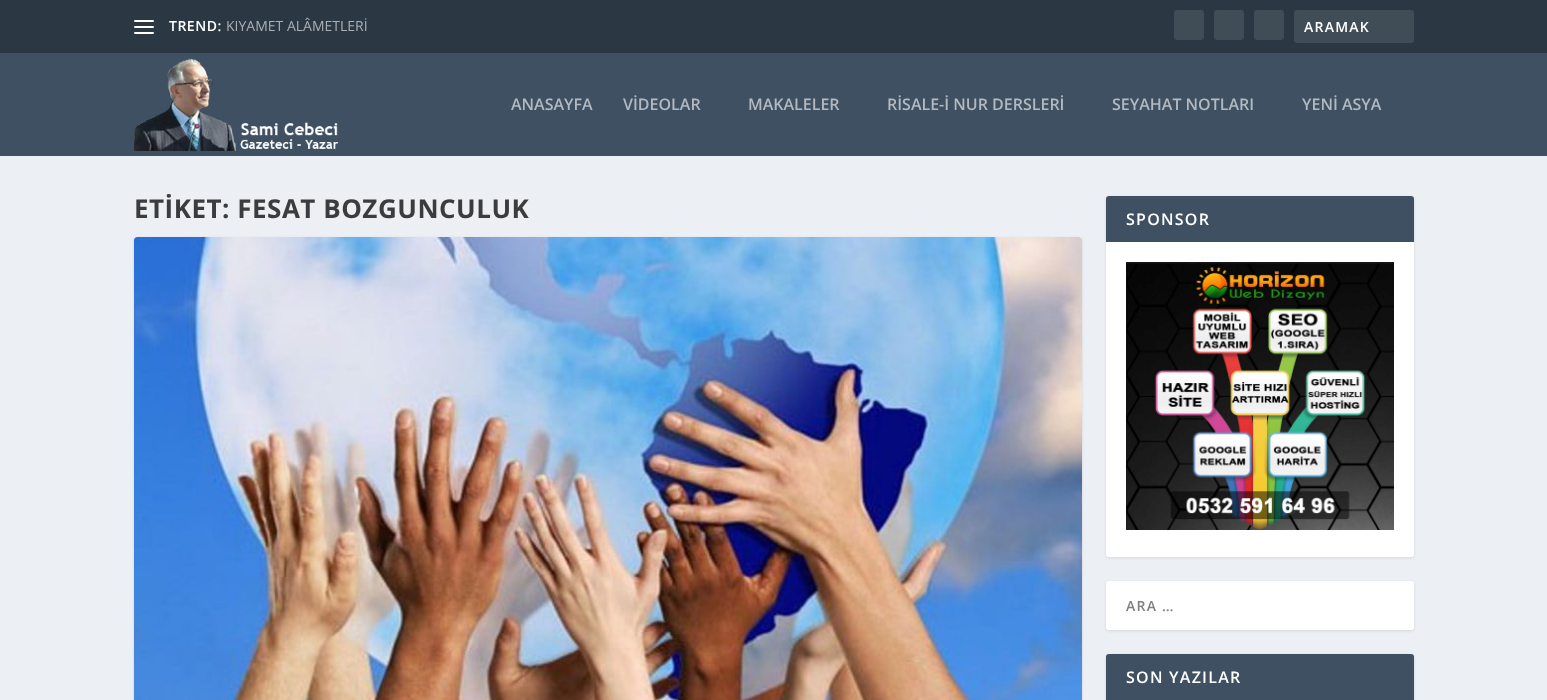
(async () => {
const canvas = document.querySelector("canvas")
canvas.width = 1547
canvas.height = 700
const c = canvas.getContext("2d")
c.miterLimit = 4
c.fontKerning = "normal"
function T(s,x,y){c.fillText(s,x,y)}
function R(x,y,w,h){c.fillRect(x,y,w,h)}
function Q(x,y,w,h,r){c.beginPath();c.roundRect(x,y,w,h,r);c.fill()}
async function I(src,x,y,w,h){const img=new Image();img.src=src;await img.decode();c.drawImage(img,x,y,w,h)}
c.fillStyle="#ecf0f5"
R(0,0,1547,700)
c.fillStyle="#2b3843"
R(0,0,1547,53)
c.fillStyle="#fff"
Q(134,20,20,2,1)
Q(134,26,20,2,1)
Q(134,32,20,2,1)
c.letterSpacing="0.5px"
c.font="600 14px Open Sans"
T("TREND:",169,31)
c.letterSpacing="0px"
c.font="14px Open Sans"
c.fillStyle="#aaafb4"
T("KIYAMET ALÂMETLERİ",226,31)
c.fillStyle="#404c56"
Q(1174,10,30,30,3)
Q(1214,10,30,30,3)
Q(1254,10,30,30,3)
Q(1294,10,120,33,3)
c.letterSpacing="1.25px"
c.font="600 14px Open Sans"
c.fillStyle="#fff"
T("ARAMAK",1304,32)
c.fillStyle="#3e5062"
R(0,53,1547,103)
await I("1.png",134,58,204,93)
c.letterSpacing="0px"
c.font="600 16px Open Sans"
c.fillStyle="#b2b9c0"
T("ANASAYFA",511,110)
T("VİDEOLAR",623,110)
T("MAKALELER",748,110)
T("RİSALE-İ NUR DERSLERİ",887,110)
T("SEYAHAT NOTLARI",1112,110)
T("YENİ ASYA",1302,110)
c.letterSpacing="0.5px"
c.font="bold 26px Open Sans"
c.fillStyle="#3b3c3d"
T("ETİKET: FESAT BOZGUNCULUK",134,218)
c.fillStyle="#0000001a"
c.filter="blur(1.5px)"
c.beginPath()
c.roundRect(134,238,948,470,3)
c.fill()
c.filter="none"
c.fillStyle="#fff"
Q(134,237,948,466,3)
await I("2.png",134,237,948,463)
c.fillStyle="#0000001a"
c.filter="blur(1.5px)"
c.beginPath()
c.roundRect(1106,197,308,361,3)
c.fill()
c.filter="none"
c.fillStyle="#fff"
Q(1106,196,308,361,3)
c.fillStyle="#3e5062"
c.beginPath()
c.roundRect(1106,196,308,46,[3,3,0,0])
c.fill()
c.letterSpacing="1.25px"
c.font="600 16px Open Sans"
c.fillStyle="#fff"
T("SPONSOR",1126,225)
await I("3.png",1126,262,268,268)
c.fillStyle="#0000001a"
c.filter="blur(1.5px)"
c.beginPath()
c.roundRect(1106,582,308,49,3)
c.fill()
c.filter="none"
c.fillStyle="#fff"
Q(1106,581,308,49,3)
c.font="600 14px Open Sans"
c.fillStyle="#808080"
T("ARA …",1126,611)
c.fillStyle="#0000001a"
c.filter="blur(1.5px)"
c.beginPath()
c.roundRect(1106,655,308,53,3)
c.fill()
c.filter="none"
c.fillStyle="#3e5062"
c.beginPath()
c.roundRect(1106,654,308,46,[3,3,0,0])
c.fill()
c.font="600 16px Open Sans"
c.fillStyle="#fff"
T("SON YAZILAR",1126,683)
})()
